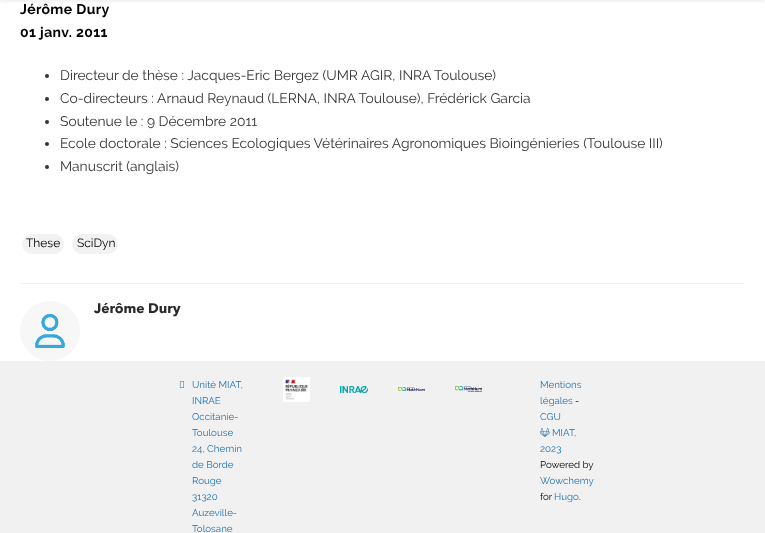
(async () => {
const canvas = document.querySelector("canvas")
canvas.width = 765
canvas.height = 533
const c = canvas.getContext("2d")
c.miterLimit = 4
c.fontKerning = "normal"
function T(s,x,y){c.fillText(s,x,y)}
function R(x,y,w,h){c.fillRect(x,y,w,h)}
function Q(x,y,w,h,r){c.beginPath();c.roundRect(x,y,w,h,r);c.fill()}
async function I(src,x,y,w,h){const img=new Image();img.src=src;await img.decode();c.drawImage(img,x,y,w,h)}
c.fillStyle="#fff"
R(0,0,765,533)
c.fillStyle="#f1f1f1"
c.filter="blur(1.5px)"
c.beginPath()
c.rect(0,-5,765,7)
c.fill()
c.filter="none"
c.letterSpacing="0.4px"
c.font="bold 14px Raleway"
c.fillStyle="#000"
T("Jérôme Dury",20,14)
T("01 janv. 2011",20,37)
c.fillStyle="#333"
c.beginPath()
c.arc(47,76,2,0,7)
c.fill()
c.letterSpacing="0px"
c.font="13.85px Raleway"
T("Directeur de thèse : Jacques-Eric Bergez (UMR AGIR, INRA Toulouse)",60,80)
c.beginPath()
c.arc(47,99,2,0,7)
c.fill()
T("Co-directeurs : Arnaud Reynaud (LERNA, INRA Toulouse), Frédérick Garcia",60,103)
c.beginPath()
c.arc(47,122,2,0,7)
c.fill()
T("Soutenue le : 9 Décembre 2011",60,126)
c.beginPath()
c.arc(47,144,2,0,7)
c.fill()
T("Ecole doctorale : Sciences Ecologiques Vétérinaires Agronomiques Bioingénieries (Toulouse III)",60,148)
c.beginPath()
c.arc(47,167,2,0,7)
c.fill()
T("Manuscrit (anglais)",60,171)
c.fillStyle="#f2f2f2"
Q(22,234,42,20,10)
c.font="12px Raleway"
c.fillStyle="#000"
T("These",26,247)
c.fillStyle="#f2f2f2"
Q(72,234,46,20,10)
c.fillStyle="#000"
T("SciDyn",77,247)
c.fillStyle="#f2f2f2"
R(20,283,725,1)
await I("1.png",20,301,60,60)
c.font="bold 13.85px Avenir Next"
c.fillStyle="#292929"
T("Jérôme Dury",94,313)
c.fillStyle="#f1f1f1"
R(0,361,765,172)
await I("2.png",179,381,5,7)
c.font="9.75px Raleway"
c.fillStyle="#1b71b4"
T("Unité MIAT,",192,388)
T("INRAE",192,404)
T("Occitanie-",192,420)
T("Toulouse",192,436)
T("24, Chemin",192,452)
T("de Borde",192,468)
T("Rouge",192,484)
T("31320",192,500)
T("Auzeville-",192,516)
T("Tolosane",192,532)
await I("3.png",283,377,27,25)
await I("4.png",340,386,28,7)
await I("5.png",398,387,27,4)
await I("6.png",455,386,27,6)
T("Mentions",540,388)
T("légales",540,404)
c.fillStyle="#000"
T("-",575,404)
c.fillStyle="#1b71b4"
T("CGU",540,420)
await I("7.png",540,427,10,10)
T("MIAT,",552,436)
T("2023",540,452)
c.fillStyle="#000"
T("Powered by",540,468)
c.fillStyle="#1b71b4"
T("Wowchemy",540,484)
c.fillStyle="#000"
T("for",540,500)
c.fillStyle="#1b71b4"
T("Hugo",554,500)
c.fillStyle="#000"
T(".",579,500)
})()
